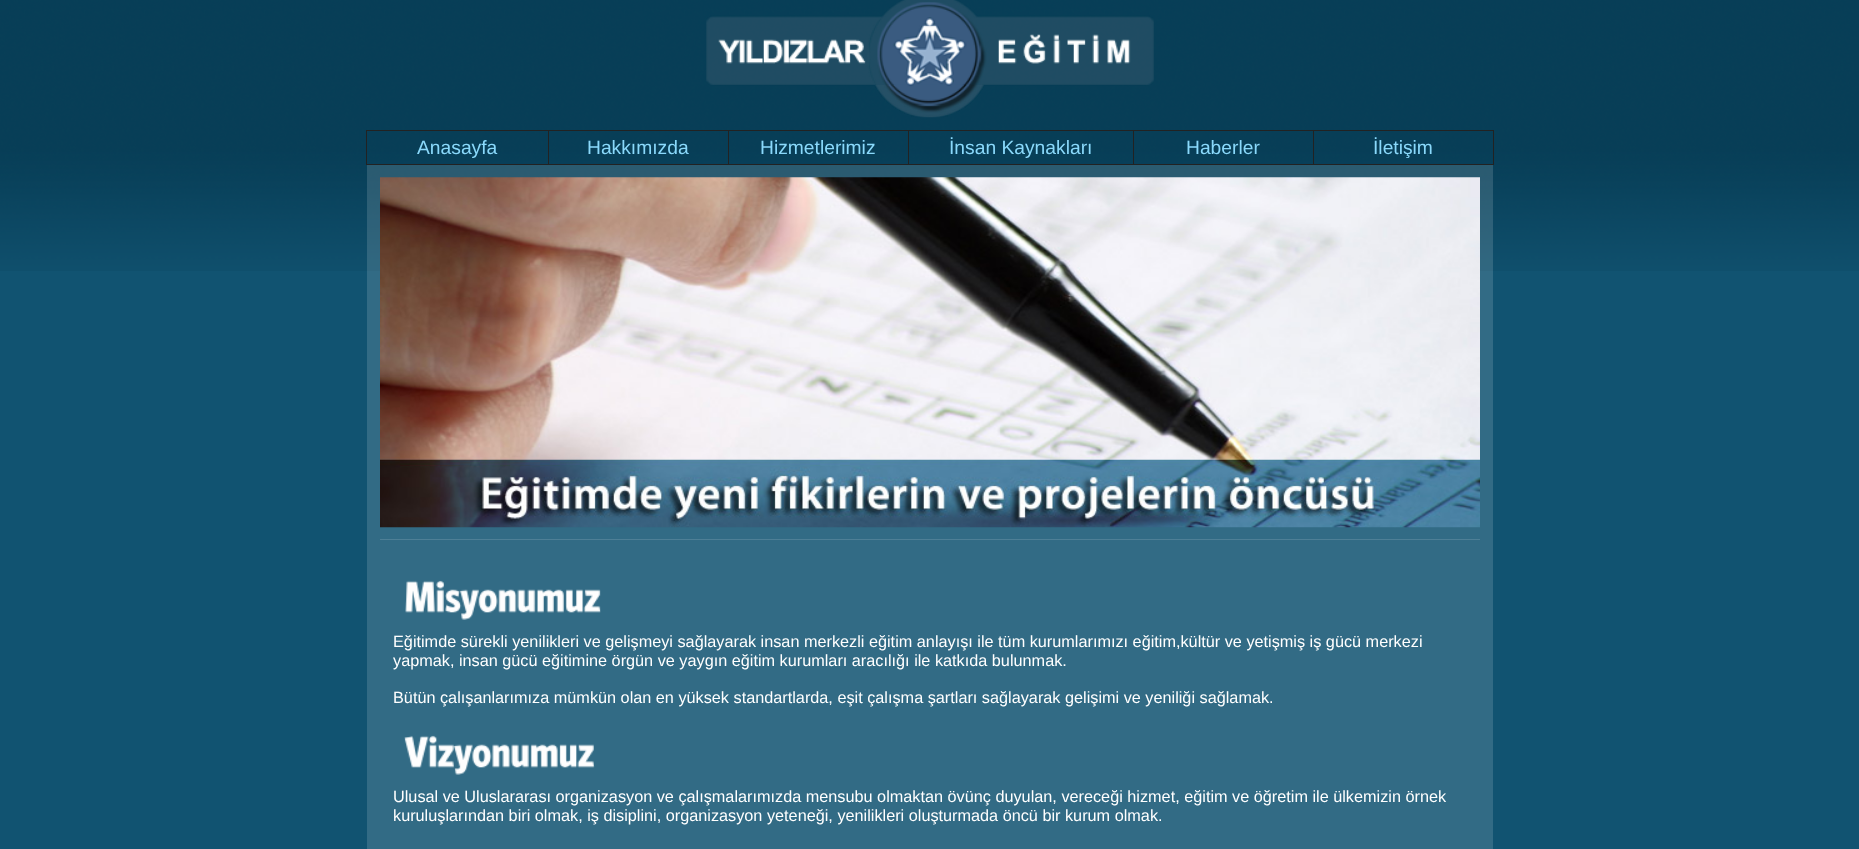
(async () => {
const canvas = document.querySelector("canvas")
canvas.width = 1859
canvas.height = 849
const c = canvas.getContext("2d")
c.miterLimit = 4
c.fontKerning = "normal"
function T(s,x,y){c.fillText(s,x,y)}
function R(x,y,w,h){c.fillRect(x,y,w,h)}
async function I(src,x,y,w,h){const img=new Image();img.src=src;await img.decode();c.drawImage(img,x,y,w,h)}
c.fillStyle="#115371"
R(0,0,1859,849)
await I("1.png",0,0,1859,271)
await I("2.png",706,0,448,118)
await I("3.png",875,84,109,33)
c.strokeStyle="#222"
c.strokeRect(366.5,130.5,1127,34)
c.font="19.25px Liberation Sans"
c.fillStyle="#8ad9fb"
T("Anasayfa",417,154)
c.fillStyle="#222"
R(548,131,1,33)
c.fillStyle="#8ad9fb"
T("Hakkımızda",587,154)
c.fillStyle="#222"
R(728,131,1,33)
c.fillStyle="#8ad9fb"
T("Hizmetlerimiz",760,154)
c.fillStyle="#222"
R(908,131,1,33)
c.fillStyle="#8ad9fb"
T("İnsan Kaynakları",949,154)
c.fillStyle="#222"
R(1133,131,1,33)
c.fillStyle="#8ad9fb"
T("Haberler",1186,154)
c.fillStyle="#222"
R(1313,131,1,33)
c.fillStyle="#8ad9fb"
T("İletişim",1373,154)
c.fillStyle="#ffffff24"
R(367,165,1126,684)
await I("4.png",380,177,1100,351)
c.fillStyle="#115371"
R(380,540,1100,309)
c.fillStyle="#ffffff24"
R(380,539,1100,310)
await I("5.png",405,580,196,40)
c.font="16.25px Liberation Sans"
c.fillStyle="#fff"
T("Eğitimde sürekli yenilikleri ve gelişmeyi sağlayarak insan merkezli eğitim anlayışı ile tüm kurumlarımızı eğitim,kültür ve yetişmiş iş gücü merkezi",393,647)
T("yapmak, insan gücü eğitimine örgün ve yaygın eğitim kurumları aracılığı ile katkıda bulunmak.",393,666)
T("Bütün çalışanlarımıza mümkün olan en yüksek standartlarda, eşit çalışma şartları sağlayarak gelişimi ve yeniliği sağlamak.",393,703)
await I("6.png",404,735,191,40)
T("Ulusal ve Uluslararası organizasyon ve çalışmalarımızda mensubu olmaktan övünç duyulan, vereceği hizmet, eğitim ve öğretim ile ülkemizin örnek",393,802)
T("kuruluşlarından biri olmak, iş disiplini, organizasyon yeteneği, yenilikleri oluşturmada öncü bir kurum olmak.",393,821)
})()
